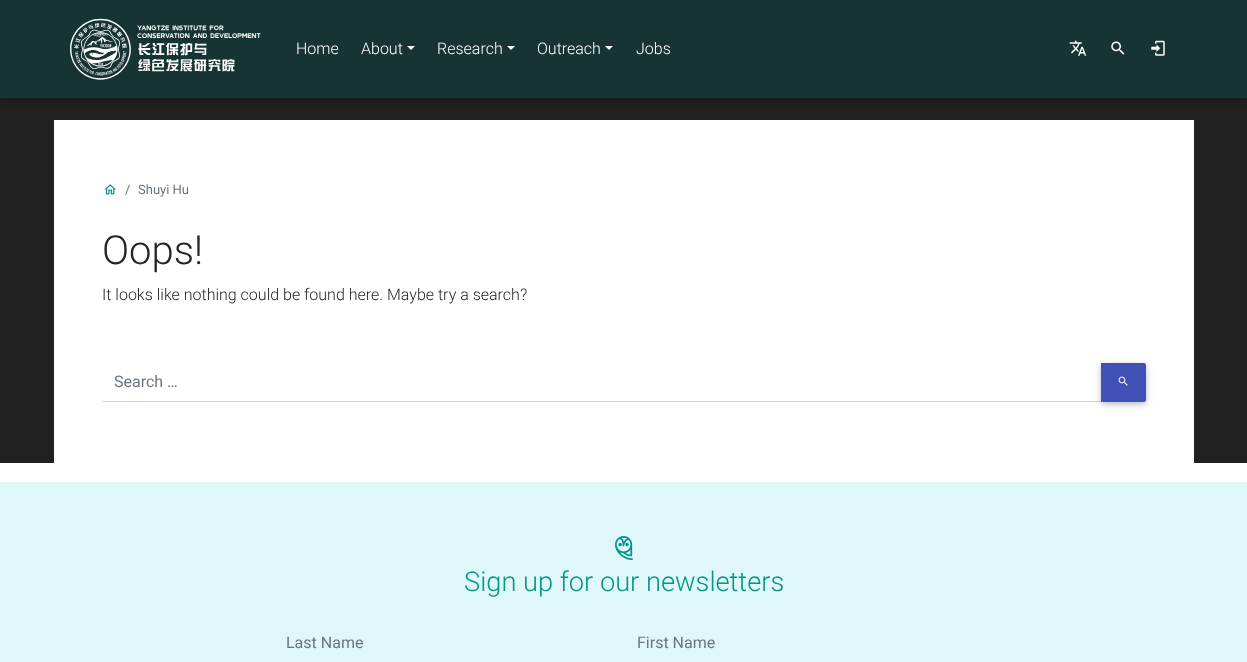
(async () => {
const canvas = document.querySelector("canvas")
canvas.width = 1247
canvas.height = 662
const c = canvas.getContext("2d")
c.miterLimit = 4
c.fontKerning = "normal"
function T(s,x,y){c.fillText(s,x,y)}
function R(x,y,w,h){c.fillRect(x,y,w,h)}
async function I(src,x,y,w,h){const img=new Image();img.src=src;await img.decode();c.drawImage(img,x,y,w,h)}
let path
c.fillStyle="#fff"
R(0,0,1247,662)
c.fillStyle="#212121"
R(0,98,1247,365)
c.fillStyle="#0000001f"
c.filter="blur(5px)"
c.beginPath()
c.rect(0,2,1247,98)
c.fill()
c.filter="none"
c.fillStyle="#00000029"
c.filter="blur(2.5px)"
c.beginPath()
c.rect(0,2,1247,98)
c.fill()
c.filter="none"
c.fillStyle="#173435"
R(0,0,1247,98)
await I("1.png",70,18,191,62)
c.font="300 16px Roboto"
c.fillStyle="#fff"
T("Home",296,54)
T("About",361,54)
path = new Path2D("M407 46h8l-4 4z")
c.fill(path)
T("Research",437,54)
path = new Path2D("M507 46h8l-4 4z")
c.fill(path)
T("Outreach",537,54)
path = new Path2D("M605 46h8l-4 4z")
c.fill(path)
T("Jobs",636,54)
await I("2.png",1069,40,18,16)
await I("3.png",1111,41,14,14)
await I("4.png",1151,40,14,16)
R(54,120,1140,343)
await I("5.png",104,184,12,11)
c.font="13px Roboto"
c.fillStyle="#6c757d"
T("/",125,194)
T("Shuyi Hu",138,194)
c.font="300 40px Roboto"
c.fillStyle="#212529"
T("Oops!",102,264)
c.font="300 16px Roboto"
T("It looks like nothing could be found here. Maybe try a search?",102,300)
c.fillStyle="#ced4da"
R(102,401,1000,1)
c.font="16px Roboto"
c.fillStyle="#6c757d"
T("Search …",114,387)
c.fillStyle="#0000001f"
c.filter="blur(5px)"
c.beginPath()
c.roundRect(1101,365,45,39,2)
c.fill()
c.filter="none"
c.fillStyle="#00000029"
c.filter="blur(2.5px)"
c.beginPath()
c.roundRect(1101,365,45,39,2)
c.fill()
c.filter="none"
c.fillStyle="#3f51b5"
c.beginPath()
c.roundRect(1101,363,45,39,[0,2,2,0])
c.fill()
await I("6.png",1118,376,10,10)
c.fillStyle="#e0f7fa"
R(0,482,1247,180)
await I("7.png",615,536,18,24)
c.font="300 27.25px Roboto"
c.fillStyle="#009688"
T("Sign up for our newsletters",464,591)
c.font="16px Roboto"
c.fillStyle="#6c757d"
T("Last Name",286,648)
T("First Name",637,648)
})()
